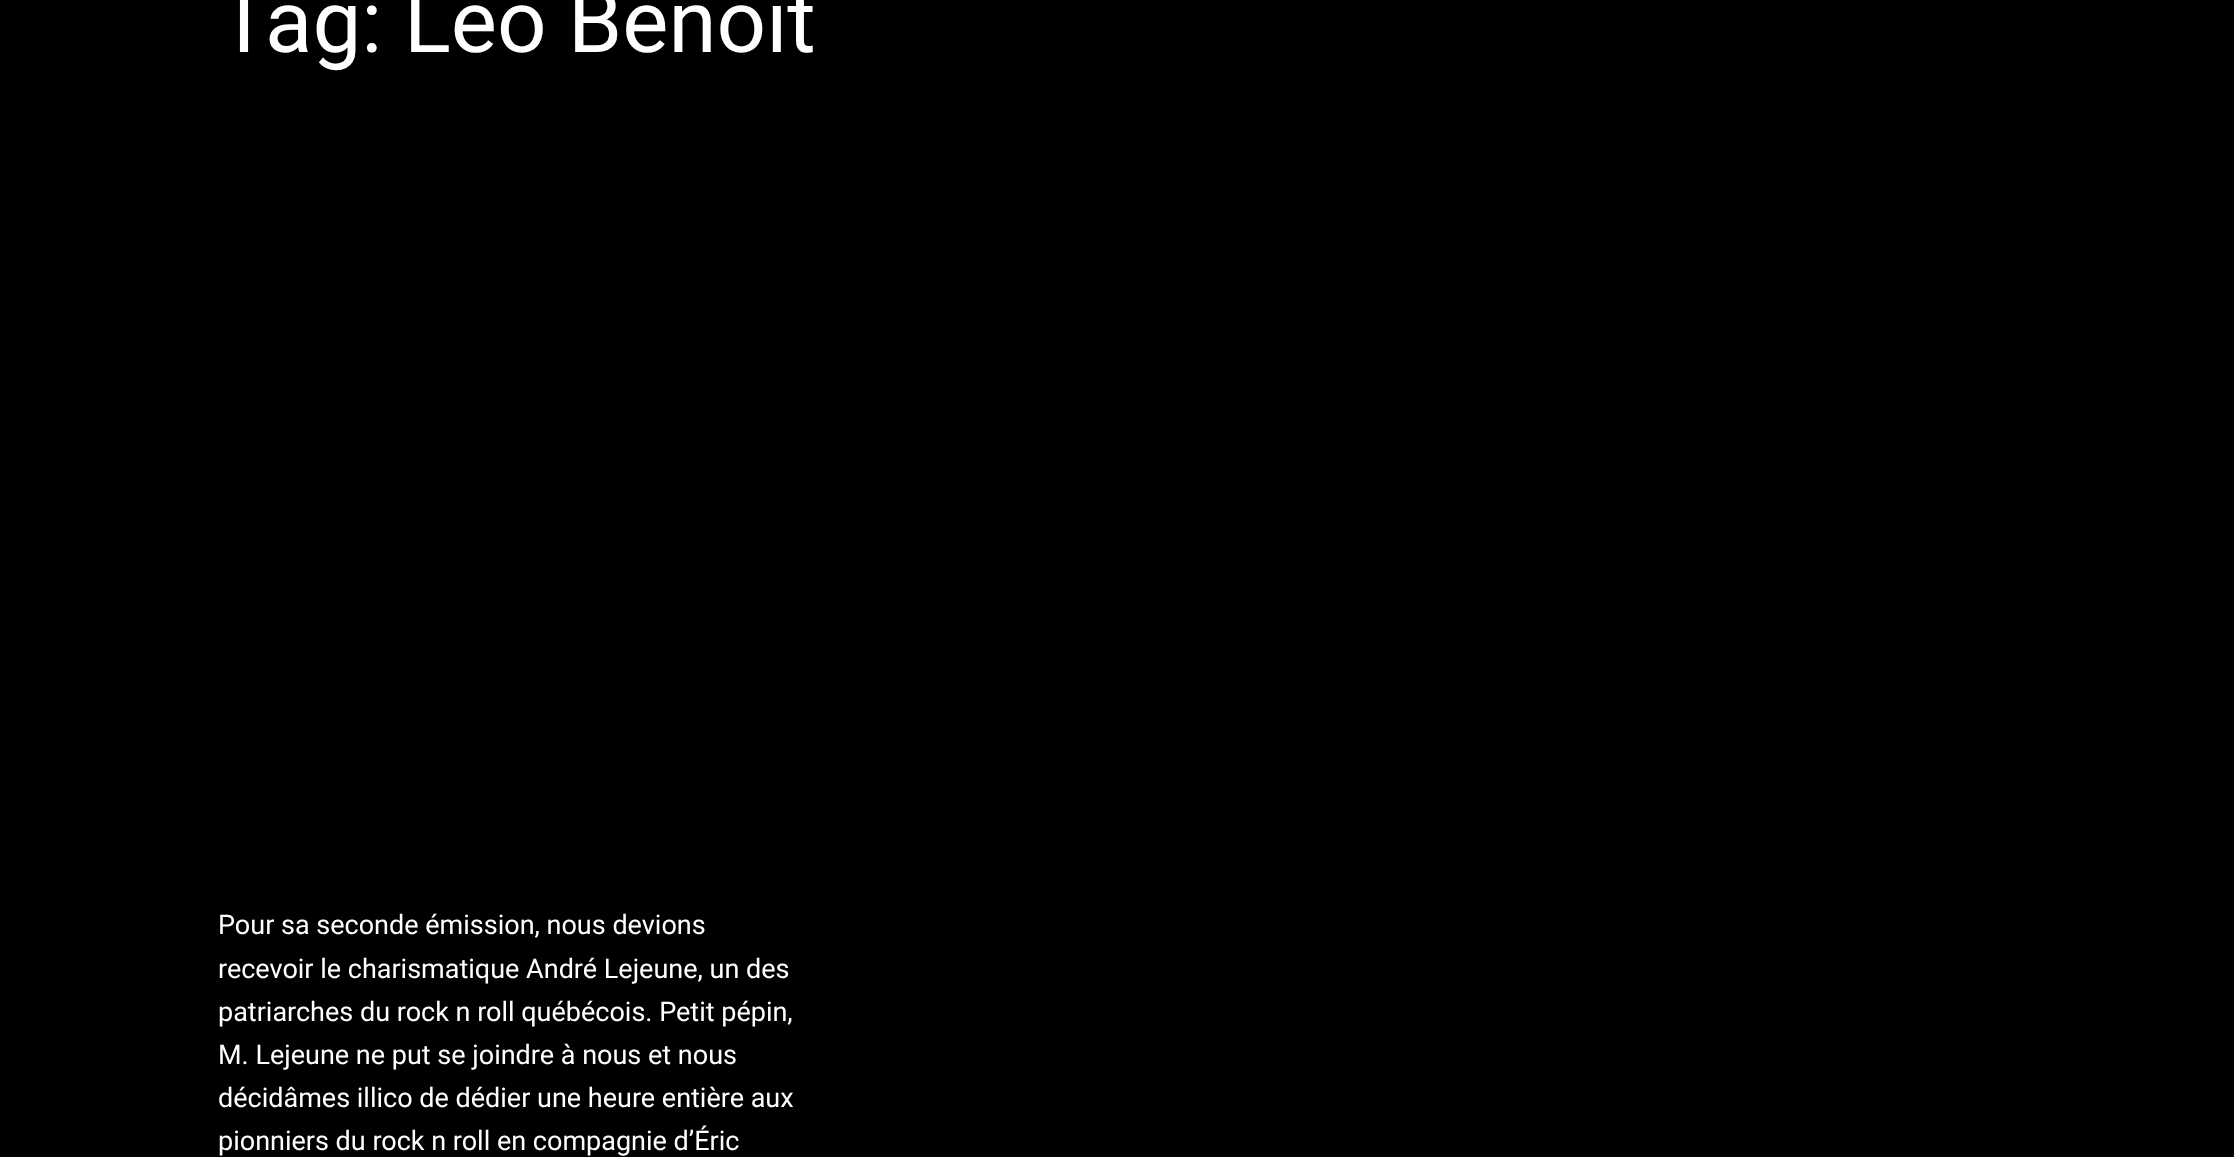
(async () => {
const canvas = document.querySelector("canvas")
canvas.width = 2234
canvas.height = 1157
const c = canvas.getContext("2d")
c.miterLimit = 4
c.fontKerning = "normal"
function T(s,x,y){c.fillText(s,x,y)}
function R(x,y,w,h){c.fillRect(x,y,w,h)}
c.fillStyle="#000"
R(0,0,2234,1157)
c.font="87px Roboto"
c.fillStyle="#fff"
T("Tag: Léo Benoit",218,52)
c.font="27px Roboto"
T("Pour sa seconde émission, nous devions",218,934)
T("recevoir le charismatique André Lejeune, un des",218,978)
T("patriarches du rock n roll québécois. Petit pépin,",218,1021)
T("M. Lejeune ne put se joindre à nous et nous",218,1064)
T("décidâmes illico de dédier une heure entière aux",218,1107)
T("pionniers du rock n roll en compagnie d’Éric",218,1150)
})()
